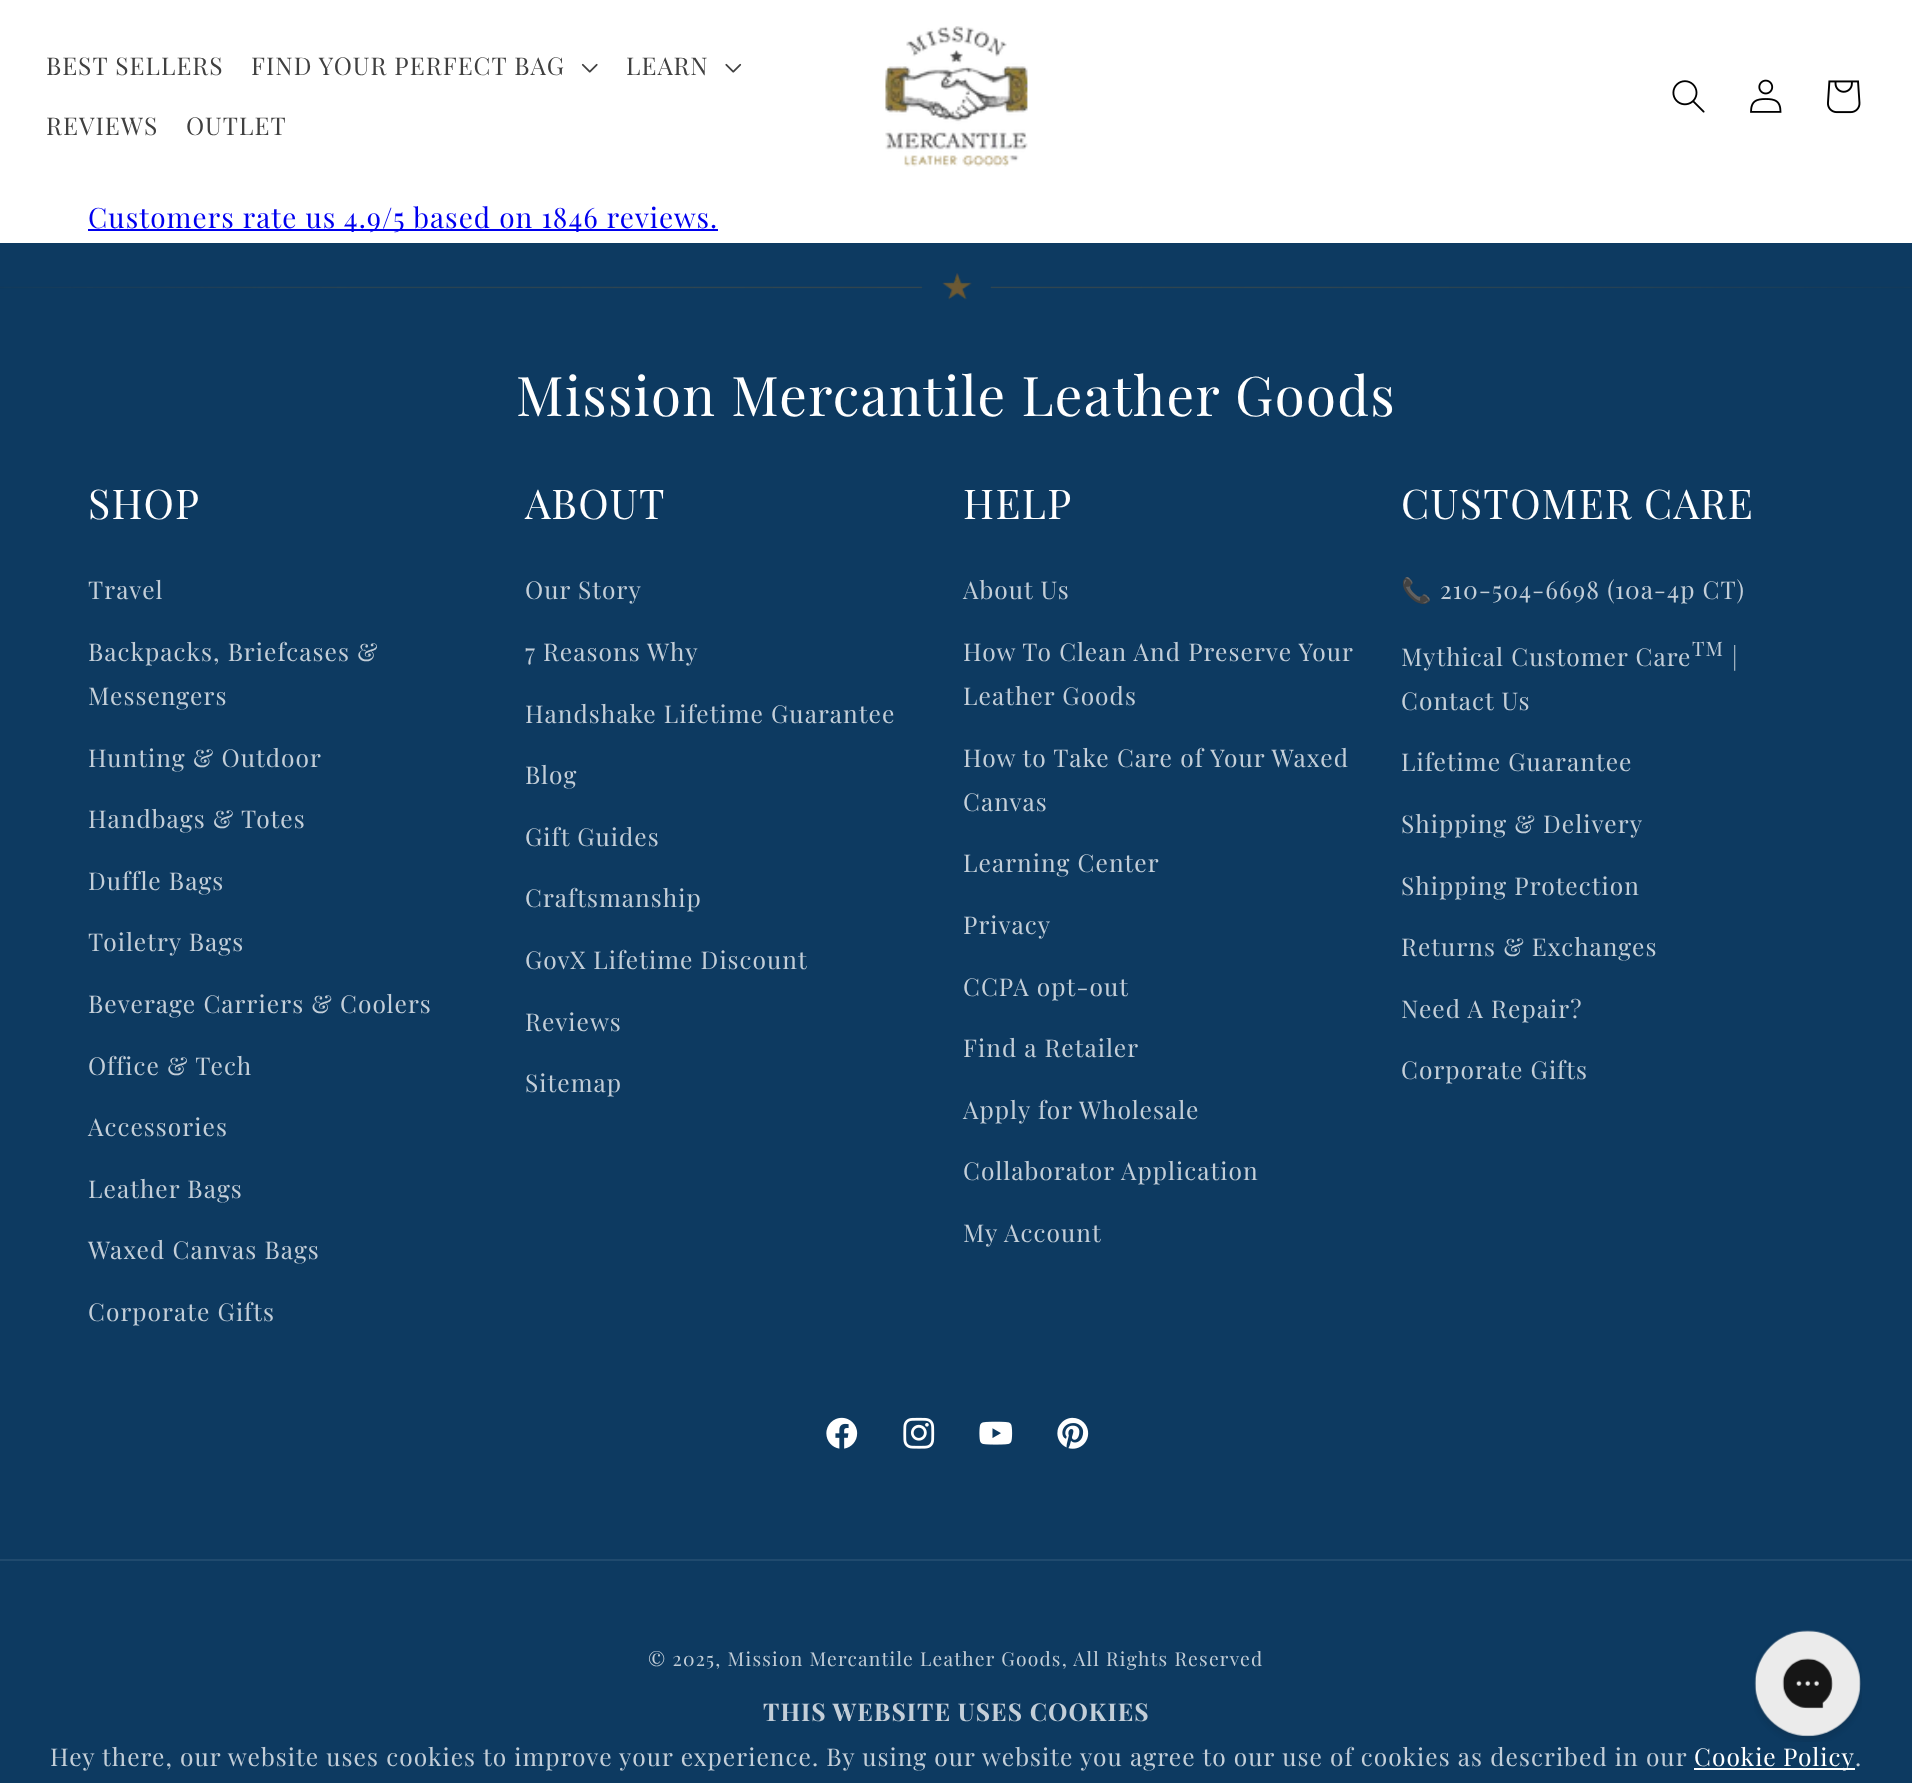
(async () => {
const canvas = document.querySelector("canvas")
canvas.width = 1912
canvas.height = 1783
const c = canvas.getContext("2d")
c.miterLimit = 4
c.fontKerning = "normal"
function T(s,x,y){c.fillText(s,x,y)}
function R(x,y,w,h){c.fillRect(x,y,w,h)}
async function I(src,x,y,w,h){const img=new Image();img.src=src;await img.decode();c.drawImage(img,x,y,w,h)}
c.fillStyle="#fff"
R(0,0,1912,1783)
c.letterSpacing="1.05px"
c.font="24.5px Playfair Display"
c.fillStyle="#404040"
T("BEST SELLERS",46,75)
T("FIND YOUR PERFECT BAG",251,75)
await I("1.png",581,63,17,10)
T("LEARN",626,75)
await I("2.png",725,63,17,10)
T("REVIEWS",46,135)
T("OUTLET",186,135)
await I("3.png",885,26,143,141)
await I("4.png",1672,80,33,33)
await I("5.png",1750,79,32,34)
await I("6.png",1827,80,34,34)
c.fillStyle="#00e"
R(88,229,630,2)
c.font="28px Playfair Display"
T("Customers rate us 4.9/5 based on 1846 reviews.",88,228)
c.fillStyle="#0d3a61"
R(0,243,1912,1540)
await I("7.png",0,273,1912,27)
c.letterSpacing="1.35px"
c.font="54.6px Playfair Display"
c.fillStyle="#fff"
T("Mission Mercantile Leather Goods",516,416)
c.font="41px Playfair Display"
T("SHOP",88,519)
c.letterSpacing="1.05px"
c.font="24.5px Playfair Display"
c.fillStyle="#c3ced8"
T("Travel",88,599)
T("Backpacks, Briefcases &",88,661)
T("Messengers",88,705)
T("Hunting & Outdoor",88,767)
T("Handbags & Totes",88,828)
T("Duffle Bags",88,890)
T("Toiletry Bags",88,951)
T("Beverage Carriers & Coolers",88,1013)
T("Office & Tech",88,1075)
T("Accessories",88,1136)
T("Leather Bags",88,1198)
T("Waxed Canvas Bags",88,1259)
T("Corporate Gifts",88,1321)
c.letterSpacing="1.35px"
c.font="41px Playfair Display"
c.fillStyle="#fff"
T("ABOUT",525,519)
c.letterSpacing="1.05px"
c.font="24.5px Playfair Display"
c.fillStyle="#c3ced8"
T("Our Story",525,599)
T("7 Reasons Why",525,661)
T("Handshake Lifetime Guarantee",525,723)
T("Blog",525,784)
T("Gift Guides",525,846)
T("Craftsmanship",525,907)
T("GovX Lifetime Discount",525,969)
T("Reviews",525,1031)
T("Sitemap",525,1092)
c.letterSpacing="1.35px"
c.font="41px Playfair Display"
c.fillStyle="#fff"
T("HELP",963,519)
c.letterSpacing="1.05px"
c.font="24.5px Playfair Display"
c.fillStyle="#c3ced8"
T("About Us",963,599)
T("How To Clean And Preserve Your",963,661)
T("Leather Goods",963,705)
T("How to Take Care of Your Waxed",963,767)
T("Canvas",963,811)
T("Learning Center",963,872)
T("Privacy",963,934)
T("CCPA opt-out",963,996)
T("Find a Retailer",963,1057)
T("Apply for Wholesale",963,1119)
T("Collaborator Application",963,1180)
T("My Account",963,1242)
c.letterSpacing="1.35px"
c.font="41px Playfair Display"
c.fillStyle="#fff"
T("CUSTOMER CARE",1401,519)
c.letterSpacing="1.05px"
c.font="24.5px Noto Color Emoji"
c.fillStyle="#c3ced8"
T("📞",1401,599)
c.font="24.5px Playfair Display"
T("210-504-6698 (10a-4p CT)",1440,599)
T("Mythical Customer Care",1401,666)
c.font="20px Playfair Display"
T("TM",1692,656)
c.font="24.5px Playfair Display"
T("|",1732,666)
T("Contact Us",1401,710)
T("Lifetime Guarantee",1401,771)
T("Shipping & Delivery",1401,833)
T("Shipping Protection",1401,895)
T("Returns & Exchanges",1401,956)
T("Need A Repair?",1401,1018)
T("Corporate Gifts",1401,1079)
await I("8.png",826,1417,32,32)
await I("9.png",903,1417,32,32)
await I("10.png",979,1421,34,24)
await I("11.png",1057,1417,32,32)
c.fillStyle="#204a6e"
R(0,1559,1912,2)
c.letterSpacing="1.22px"
c.font="19.25px Playfair Display"
c.fillStyle="#c3ced8"
T("© 2025, Mission Mercantile Leather Goods, All Rights Reserved",648,1666)
await I("12.png",1754,1630,108,112)
c.letterSpacing="1.05px"
c.font="bold 24.5px Playfair Display"
T("THIS WEBSITE USES COOKIES",763,1721)
c.font="24.5px Playfair Display"
T("Hey there, our website uses cookies to improve your experience. By using our website you agree to our use of cookies as described in our",50,1766)
c.fillStyle="#fff"
R(1694,1768,161,2)
c.wordSpacing="-1px"
T("Cookie Policy",1694,1766)
c.wordSpacing="0px"
c.fillStyle="#c3ced8"
T(".",1855,1766)
})()
